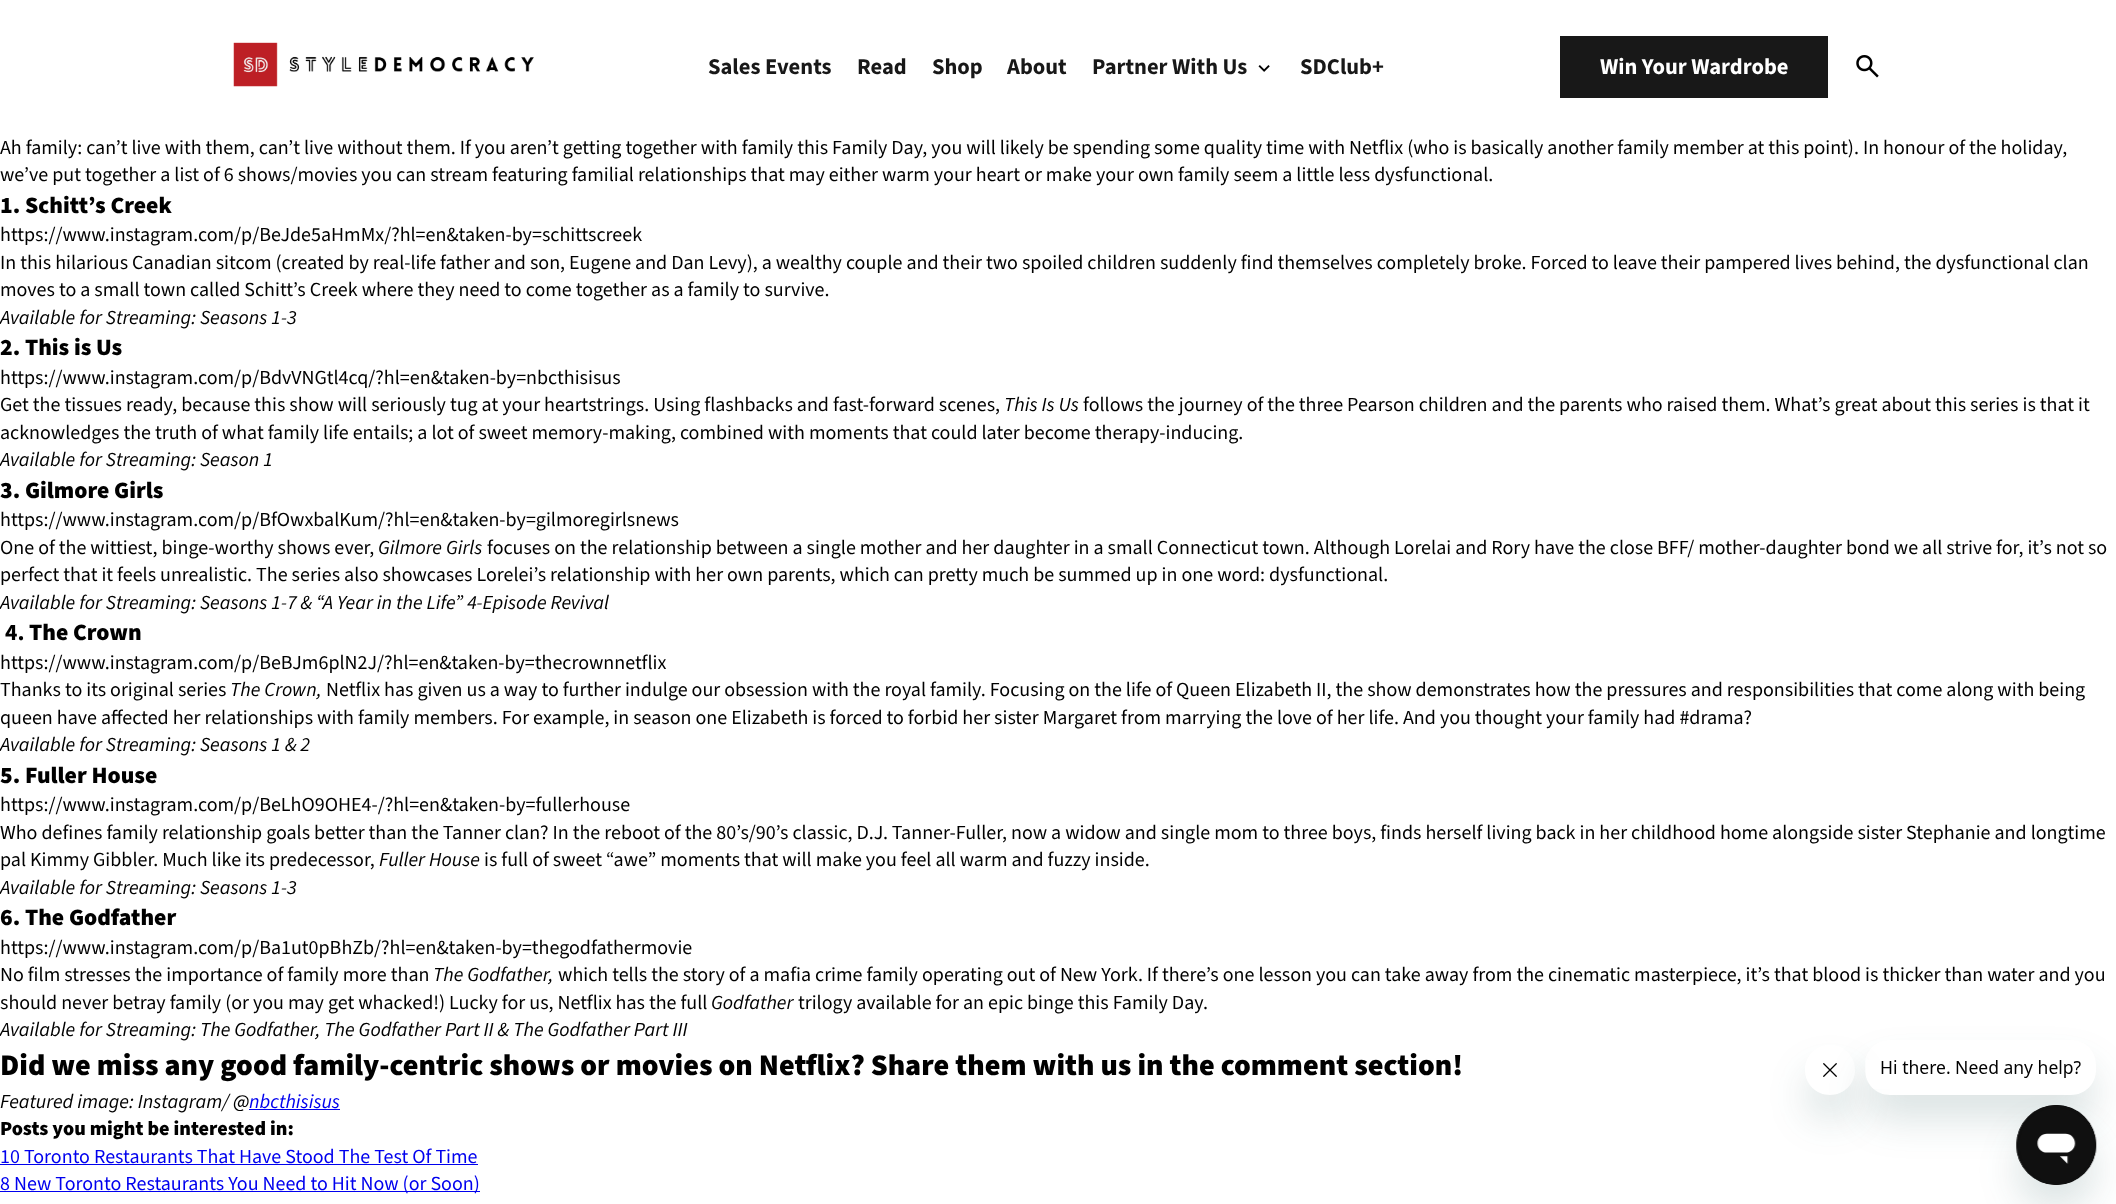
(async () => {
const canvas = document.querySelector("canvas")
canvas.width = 2116
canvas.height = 1204
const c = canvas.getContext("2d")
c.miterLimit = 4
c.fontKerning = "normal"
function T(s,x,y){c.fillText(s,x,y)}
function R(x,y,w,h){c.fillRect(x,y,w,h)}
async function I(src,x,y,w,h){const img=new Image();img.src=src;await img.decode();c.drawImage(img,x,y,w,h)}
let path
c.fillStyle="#fff"
R(0,0,2116,1204)
await I("1.png",233,42,301,45)
c.font="bold 22.5px 'Source Sans 3'"
c.fillStyle="#181818"
T("Sales Events",708,74)
T("Read",857,74)
T("Shop",932,74)
T("About",1007,74)
T("Partner With Us",1092,74)
await I("2.png",1258,65,12,7)
T("SDClub+",1300,74)
R(1560,36,268,62)
c.fillStyle="#fff"
T("Win Your Wardrobe",1600,74)
await I("3.png",1856,55,23,23)
c.font="20px 'Source Sans 3'"
c.fillStyle="#000"
T("Ah family: can’t live with them, can’t live without them. If you aren’t getting together with family this Family Day, you will likely be spending some quality time with Netflix (who is basically another family member at this point). In honour of the holiday,",0,154)
T("we’ve put together a list of 6 shows/movies you can stream featuring familial relationships that may either warm your heart or make your own family seem a little less dysfunctional.",0,181)
c.font="900 23.5px 'Source Sans 3'"
T("1. Schitt’s Creek",0,213)
c.font="20px 'Source Sans 3'"
T("https://www.instagram.com/p/BeJde5aHmMx/?hl=en&taken-by=schittscreek",0,241)
T("In this hilarious Canadian sitcom (created by real-life father and son, Eugene and Dan Levy), a wealthy couple and their two spoiled children suddenly find themselves completely broke. Forced to leave their pampered lives behind, the dysfunctional clan",0,269)
T("moves to a small town called Schitt’s Creek where they need to come together as a family to survive.",0,296)
c.font="italic 20px 'Source Sans 3'"
T("Available for Streaming: Seasons 1-3",0,324)
c.font="900 23.5px 'Source Sans 3'"
T("2. This is Us",0,355)
c.font="20px 'Source Sans 3'"
T("https://www.instagram.com/p/BdvVNGtl4cq/?hl=en&taken-by=nbcthisisus",0,384)
T("Get the tissues ready, because this show will seriously tug at your heartstrings. Using flashbacks and fast-forward scenes,",0,411)
c.font="italic 20px 'Source Sans 3'"
T("This Is Us",1004,411)
c.font="20px 'Source Sans 3'"
T("follows the journey of the three Pearson children and the parents who raised them. What’s great about this series is that it",1083,411)
T("acknowledges the truth of what family life entails; a lot of sweet memory-making, combined with moments that could later become therapy-inducing.",0,439)
c.font="italic 20px 'Source Sans 3'"
T("Available for Streaming: Season 1",0,466)
c.font="900 23.5px 'Source Sans 3'"
T("3. Gilmore Girls",0,498)
c.font="20px 'Source Sans 3'"
T("https://www.instagram.com/p/BfOwxbalKum/?hl=en&taken-by=gilmoregirlsnews",0,526)
T("One of the wittiest, binge-worthy shows ever,",0,554)
c.font="italic 20px 'Source Sans 3'"
T("Gilmore Girls",378,554)
c.font="20px 'Source Sans 3'"
T("focuses on the relationship between a single mother and her daughter in a small Connecticut town. Although Lorelai and Rory have the close BFF/ mother-daughter bond we all strive for, it’s not so",487,554)
T("perfect that it feels unrealistic. The series also showcases Lorelei’s relationship with her own parents, which can pretty much be summed up in one word: dysfunctional.",0,581)
c.font="italic 20px 'Source Sans 3'"
T("Available for Streaming: Seasons 1-7 & “A Year in the Life” 4-Episode Revival",0,609)
c.font="bold 23.5px 'Source Sans 3'"
T("4.",5,640)
c.font="900 23.5px 'Source Sans 3'"
T("The Crown",29,640)
c.font="20px 'Source Sans 3'"
T("https://www.instagram.com/p/BeBJm6plN2J/?hl=en&taken-by=thecrownnetflix",0,669)
T("Thanks to its original series",0,696)
c.font="italic 20px 'Source Sans 3'"
T("The Crown,",230,696)
c.font="20px 'Source Sans 3'"
T("Netflix has given us a way to further indulge our obsession with the royal family. Focusing on the life of Queen Elizabeth II, the show demonstrates how the pressures and responsibilities that come along with being",326,696)
T("queen have affected her relationships with family members. For example, in season one Elizabeth is forced to forbid her sister Margaret from marrying the love of her life. And you thought your family had #drama?",0,724)
c.font="italic 20px 'Source Sans 3'"
T("Available for Streaming: Seasons 1 & 2",0,751)
c.font="900 23.5px 'Source Sans 3'"
T("5. Fuller House",0,783)
c.font="20px 'Source Sans 3'"
T("https://www.instagram.com/p/BeLhO9OHE4-/?hl=en&taken-by=fullerhouse",0,811)
T("Who defines family relationship goals better than the Tanner clan? In the reboot of the 80’s/90’s classic, D.J. Tanner-Fuller, now a widow and single mom to three boys, finds herself living back in her childhood home alongside sister Stephanie and longtime",0,839)
T("pal Kimmy Gibbler. Much like its predecessor,",0,866)
c.font="italic 20px 'Source Sans 3'"
T("Fuller House",379,866)
c.font="20px 'Source Sans 3'"
T("is full of sweet “awe” moments that will make you feel all warm and fuzzy inside.",484,866)
c.font="italic 20px 'Source Sans 3'"
T("Available for Streaming: Seasons 1-3",0,894)
c.font="900 23.5px 'Source Sans 3'"
T("6. The Godfather",0,925)
c.font="20px 'Source Sans 3'"
T("https://www.instagram.com/p/Ba1ut0pBhZb/?hl=en&taken-by=thegodfathermovie",0,954)
T("No film stresses the importance of family more than",0,981)
c.font="italic 20px 'Source Sans 3'"
T("The Godfather,",433,981)
c.font="20px 'Source Sans 3'"
T("which tells the story of a mafia crime family operating out of New York. If there’s one lesson you can take away from the cinematic masterpiece, it’s that blood is thicker than water and you",558,981)
T("should never betray family (or you may get whacked!) Lucky for us, Netflix has the full",0,1009)
c.font="italic 20px 'Source Sans 3'"
T("Godfather",711,1009)
c.font="20px 'Source Sans 3'"
T("trilogy available for an epic binge this Family Day.",798,1009)
c.font="italic 20px 'Source Sans 3'"
T("Available for Streaming: The Godfather, The Godfather Part II & The Godfather Part III",0,1036)
c.font="900 30px 'Source Sans 3'"
T("Did we miss any good family-centric shows or movies on Netflix? Share them with us in the comment section!",0,1075)
c.font="italic 20px 'Source Sans 3'"
T("Featured image: Instagram/ @",0,1108)
c.fillStyle="#00e"
R(249,1109,91,1)
T("nbcthisisus",249,1108)
c.font="900 20px 'Source Sans 3'"
c.fillStyle="#000"
T("Posts you might be interested in:",0,1135)
c.font="20px 'Source Sans 3'"
c.fillStyle="#00e"
T("10 Toronto Restaurants That Have Stood The Test Of Time",0,1163)
R(0,1164,478,1)
R(0,1191,480,1)
T("8 New Toronto Restaurants You Need to Hit Now (or Soon)",0,1190)
c.save()
path = new Path2D("M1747 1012h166v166h-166zm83 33c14 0 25 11 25 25c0 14-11 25-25 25c-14 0-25-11-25-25c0-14 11-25 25-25z")
c.clip(path,"evenodd")
c.fillStyle="#17494d26"
c.filter="blur(19px)"
c.beginPath()
c.roundRect(1805,1070,50,50,25)
c.fill()
c.filter="none"
c.restore()
await I("5.png",1823,1063,14,14)
c.save()
path = new Path2D("M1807 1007h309v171h-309zm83 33h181c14 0 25 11 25 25v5c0 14-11 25-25 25h-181c-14 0-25-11-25-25v-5c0-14 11-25 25-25z")
c.clip(path,"evenodd")
c.fillStyle="#17494d26"
c.filter="blur(19px)"
c.beginPath()
c.roundRect(1865,1065,231,55,25)
c.fill()
c.filter="none"
c.restore()
await I("4.png",1866,1060,215,29)
c.fillStyle="#17494d26"
c.filter="blur(19px)"
c.beginPath()
c.roundRect(2016,1130,80,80,40)
c.fill()
c.filter="none"
await I("6.png",2016,1105,81,80)
})()
